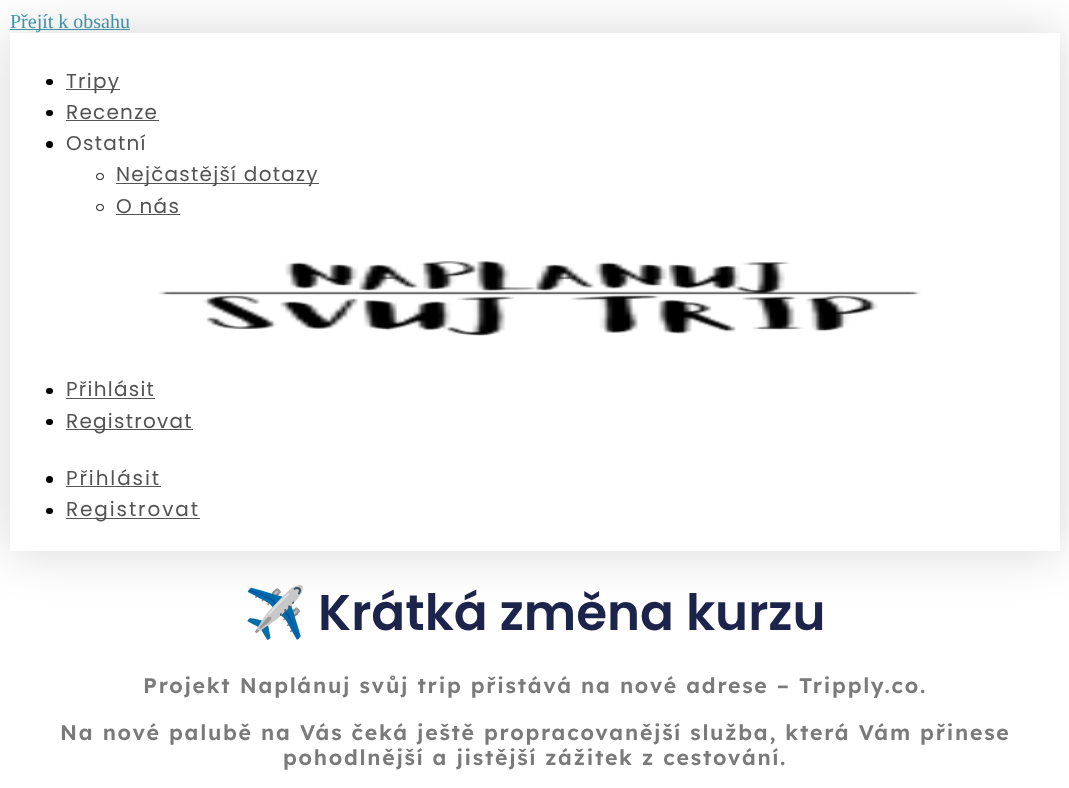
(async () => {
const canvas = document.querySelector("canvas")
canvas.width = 1069
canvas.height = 788
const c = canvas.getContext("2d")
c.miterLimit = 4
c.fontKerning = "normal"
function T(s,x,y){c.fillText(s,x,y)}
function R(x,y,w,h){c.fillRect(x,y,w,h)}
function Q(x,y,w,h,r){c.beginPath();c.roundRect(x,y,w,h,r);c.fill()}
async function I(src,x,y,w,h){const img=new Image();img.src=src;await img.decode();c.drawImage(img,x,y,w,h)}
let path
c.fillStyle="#fff"
R(0,0,1069,788)
c.fillStyle="#459aaf"
R(10,29,120,1)
c.font="20px Liberation Serif"
T("Přejít k obsahu",10,28)
c.save()
path = new Path2D("M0 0h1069v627h-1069zm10 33h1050v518h-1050z")
c.clip(path,"evenodd")
c.fillStyle="#00000029"
c.filter="blur(25px)"
c.beginPath()
c.rect(10,33,1050,518)
c.fill()
c.filter="none"
c.restore()
c.fillStyle="#000"
Q(46,79,7,6,3)
c.fillStyle="#545454"
R(66,89,54,1)
c.letterSpacing="1.25px"
c.font="20px Poppins"
c.fillStyle="#535353"
T("Tripy",66,88)
c.fillStyle="#000"
Q(46,110,7,6,3)
c.fillStyle="#535353"
T("Recenze",66,119)
c.fillStyle="#545454"
R(66,120,93,1)
c.fillStyle="#000"
c.beginPath()
c.arc(49.5,144.5,3.5,0,7)
c.fill()
c.fillStyle="#535353"
T("Ostatní",66,150)
c.beginPath()
c.roundRect(96.5,173.5,7,6,3)
c.strokeStyle="#000"
c.stroke()
c.fillStyle="#545454"
R(116,183,203,1)
c.fillStyle="#535353"
T("Nejčastější dotazy",116,181)
c.beginPath()
c.roundRect(96.5,204.5,7,6,3)
c.stroke()
T("O nás",116,213)
c.fillStyle="#545454"
R(116,214,64,1)
await I("1.png",158,261,763,75)
c.fillStyle="#000"
Q(46,388,7,6,3)
c.fillStyle="#535353"
T("Přihlásit",66,396)
c.fillStyle="#545454"
R(66,398,89,1)
c.fillStyle="#000"
Q(46,419,7,6,3)
c.fillStyle="#545454"
R(66,429,127,1)
c.fillStyle="#535353"
T("Registrovat",66,428)
c.fillStyle="#000"
c.beginPath()
c.arc(49.5,479.5,3.5,0,7)
c.fill()
c.letterSpacing="1.9px"
c.fillStyle="#535353"
T("Přihlásit",66,485)
c.fillStyle="#545454"
R(66,486,95,1)
c.fillStyle="#000"
Q(46,508,7,6,3)
c.fillStyle="#545454"
R(66,518,134,1)
c.fillStyle="#535353"
T("Registrovat",66,516)
c.letterSpacing="0px"
c.font="bold 50px Noto Color Emoji"
c.fillStyle="#1c244b"
T("✈️",244,630)
c.font="600 50px Poppins"
T("Krátká změna kurzu",318,630)
c.letterSpacing="1.75px"
c.font="600 21.25px Lexend"
c.fillStyle="#7a7a7a"
T("Projekt Naplánuj svůj trip přistává na nové adrese – Tripply.co.",143,693)
T("Na nové palubě na Vás čeká ještě propracovanější služba, která Vám přinese",60,740)
T("pohodlnější a jistější zážitek z cestování.",283,765)
})()
